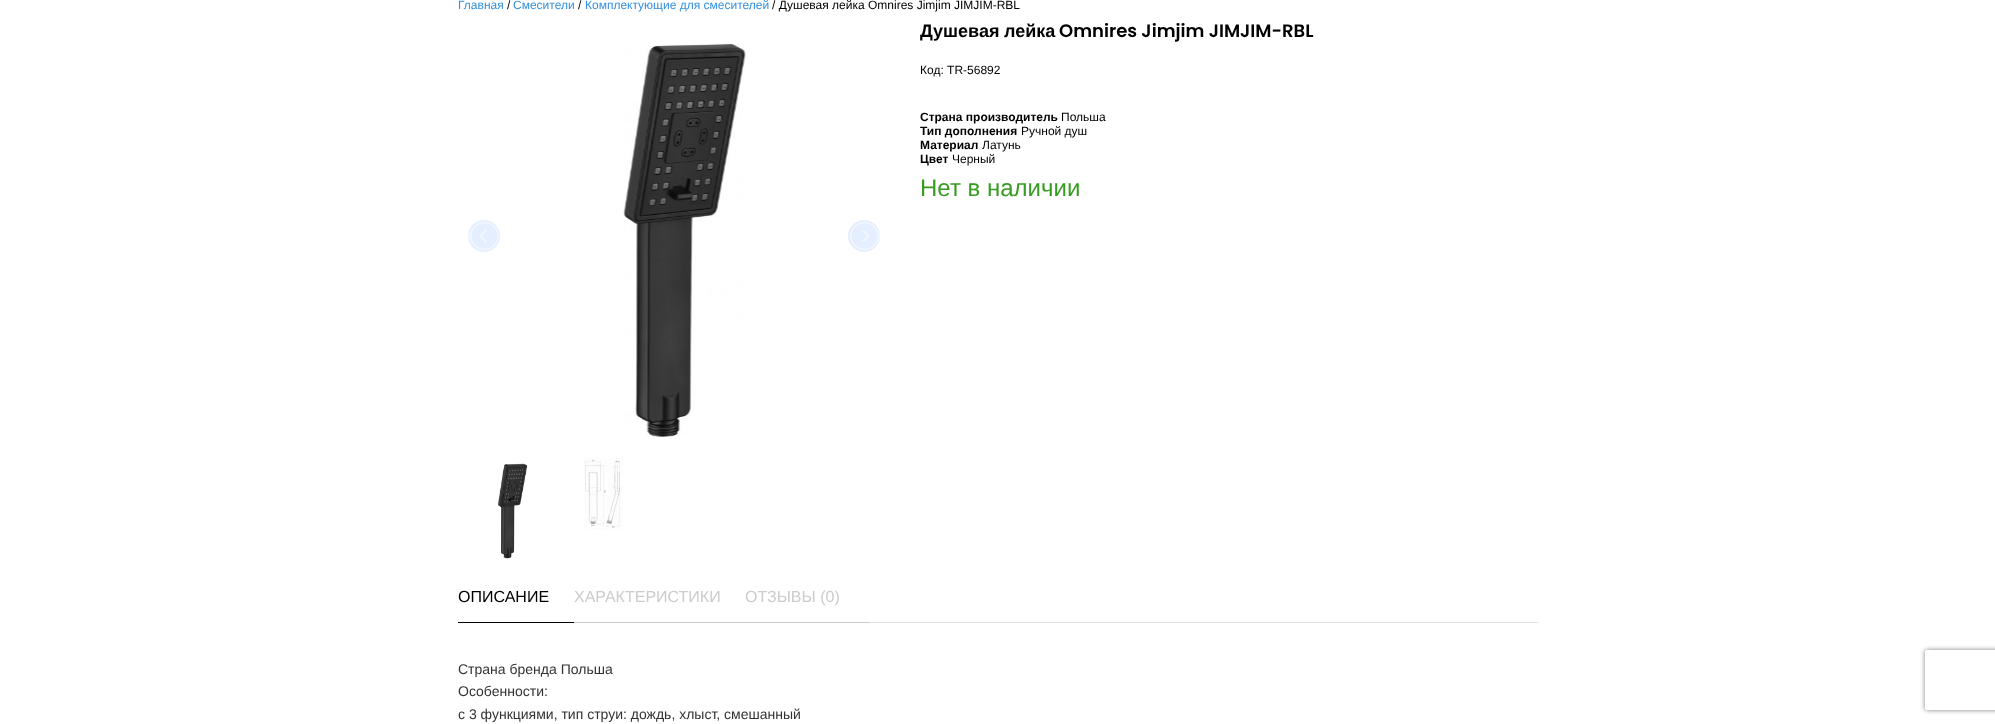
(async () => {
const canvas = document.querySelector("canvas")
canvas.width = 1995
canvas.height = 724
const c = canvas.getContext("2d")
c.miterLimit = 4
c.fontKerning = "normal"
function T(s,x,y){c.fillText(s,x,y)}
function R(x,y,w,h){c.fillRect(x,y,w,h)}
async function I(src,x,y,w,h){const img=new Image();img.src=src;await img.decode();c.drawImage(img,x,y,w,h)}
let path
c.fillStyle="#fff"
R(0,0,1995,724)
c.font="12px Liberation Sans"
c.fillStyle="#3490dc"
T("Главная",458,9)
c.fillStyle="#000"
T("/",507,9)
c.fillStyle="#3490dc"
T("Смесители",513,9)
c.fillStyle="#000"
T("/",578,9)
c.fillStyle="#3490dc"
T("Комплектующие для смесителей",585,9)
c.fillStyle="#000"
T("/ Душевая лейка Omnires Jimjim JIMJIM-RBL",772,9)
await I("1.png",623,43,123,396)
c.fillStyle="#e5eeff"
c.beginPath()
c.arc(484,236,16,0,7)
c.fill()
await I("2.png",468,222,31,28)
c.beginPath()
c.arc(864,236,16,0,7)
c.fill()
await I("3.png",850,222,30,28)
await I("4.png",498,463,30,96)
await I("5.png",584,458,39,72)
c.font="bold 18px Liberation Sans"
c.fillStyle="#000"
T("Душевая",920,37)
T("лейка",1004,37)
c.font="600 18px Poppins"
T("Omnires Jimjim JIMJIM-RBL",1059,37)
c.font="12px Liberation Sans"
T("Код: TR-56892",920,74)
c.font="bold 12px Liberation Sans"
T("Страна производитель",920,121)
c.font="12px Liberation Sans"
T("Польша",1061,121)
c.font="bold 12px Liberation Sans"
T("Тип дополнения",920,135)
c.font="12px Liberation Sans"
T("Ручной душ",1021,135)
c.font="bold 12px Liberation Sans"
T("Материал",920,149)
c.font="12px Liberation Sans"
T("Латунь",982,149)
c.font="bold 12px Liberation Sans"
T("Цвет",920,163)
c.font="12px Liberation Sans"
T("Черный",952,163)
c.font="24px Liberation Sans"
c.fillStyle="#379c22"
T("Нет в наличии",920,196)
c.fillStyle="#dee2e6"
R(870,622,668,1)
c.fillStyle="#000"
R(458,622,116,1)
c.font="16px Liberation Sans"
T("ОПИСАНИЕ",458,602)
c.fillStyle="#ccc"
R(574,622,296,1)
T("ХАРАКТЕРИСТИКИ",574,602)
T("ОТЗЫВЫ (0)",745,602)
c.font="14px Liberation Sans"
c.fillStyle="#333"
T("Страна бренда Польша",458,674)
T("Особенности:",458,696)
T("с 3 функциями, тип струи: дождь, хлыст, смешанный",458,719)
c.save()
path = new Path2D("M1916 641h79v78h-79zm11 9h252c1 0 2 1 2 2v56c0 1-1 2-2 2h-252c-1 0-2-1-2-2v-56c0-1 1-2 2-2z")
c.clip(path,"evenodd")
c.fillStyle="#808080"
c.filter="blur(2.5px)"
c.beginPath()
c.roundRect(1925,650,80,60,2)
c.fill()
c.filter="none"
c.restore()
})()
